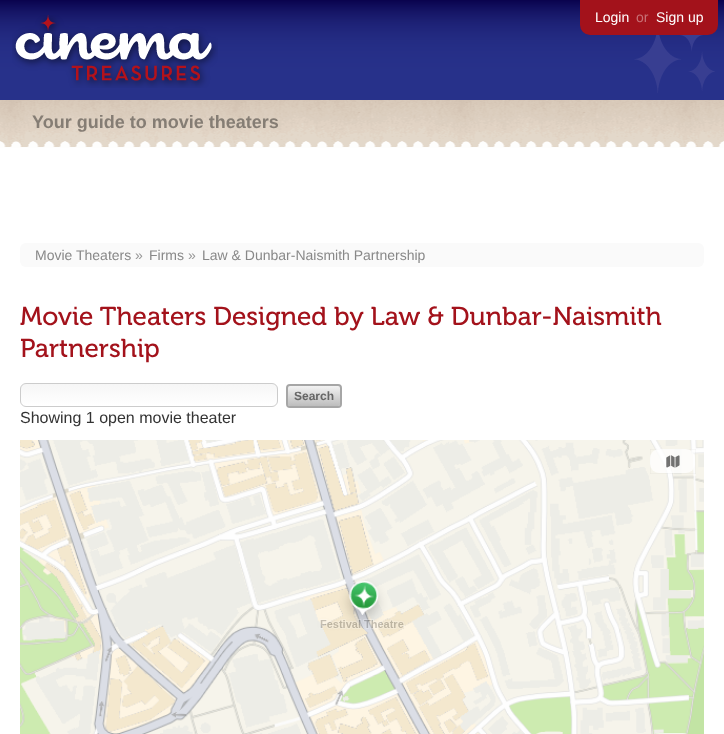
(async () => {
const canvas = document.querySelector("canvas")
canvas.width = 724
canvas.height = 734
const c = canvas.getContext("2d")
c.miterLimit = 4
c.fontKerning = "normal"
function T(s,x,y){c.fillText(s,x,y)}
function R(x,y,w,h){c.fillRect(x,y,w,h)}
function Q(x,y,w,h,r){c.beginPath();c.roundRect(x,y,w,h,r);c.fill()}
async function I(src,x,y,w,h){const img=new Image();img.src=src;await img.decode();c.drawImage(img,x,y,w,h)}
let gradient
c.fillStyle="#fff"
R(0,0,724,734)
await I("1.png",0,0,724,100)
await I("2.png",12,15,206,73)
c.fillStyle="#a3121b"
c.beginPath()
c.roundRect(580,0,138,35,[0,0,10,10])
c.fill()
c.font="14px Liberation Sans"
c.fillStyle="#fff"
T("Login",595,22)
c.fillStyle="#c87176"
T("or",636,22)
c.fillStyle="#fff"
T("Sign up",656,22)
await I("3.png",634,35,81,58)
await I("4.png",0,100,724,48)
c.font="bold 18px Liberation Sans"
c.fillStyle="#857d74"
T("Your guide to movie theaters",32,128)
c.fillStyle="#fafafa"
Q(20,243,684,24,6)
c.font="14px Liberation Sans"
c.fillStyle="#888"
T("Movie Theaters",35,260)
c.fillStyle="#999"
T("»",135,260)
c.fillStyle="#888"
T("Firms",149,260)
c.fillStyle="#999"
T("»",188,260)
c.fillStyle="#888"
T("Law & Dunbar-Naismith Partnership",202,260)
c.font="26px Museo"
c.fillStyle="#a3121b"
T("Movie Theaters Designed by Law & Dunbar-Naismith",20,325)
T("Partnership",20,357)
c.save()
c.beginPath()
c.roundRect(20,383,258,24,6)
c.clip()
gradient = c.createLinearGradient(149,384,149,406)
gradient.addColorStop(0,"#f6f6f6")
gradient.addColorStop(1,"#fff")
c.fillStyle = gradient
R(20,384,258,22)
c.restore()
c.beginPath()
c.roundRect(20.5,383.5,257,23,5.5)
c.strokeStyle="#ccc"
c.stroke()
gradient = c.createLinearGradient(314,386,314,406)
gradient.addColorStop(0,"#f2f2f2")
gradient.addColorStop(1,"#bdbdbd")
c.fillStyle = gradient
Q(288,386,52,20,2)
c.beginPath()
c.roundRect(287,385,54,22,3)
c.strokeStyle="#a6a6a6"
c.lineWidth=2
c.stroke()
c.font="bold 12px Liberation Sans"
c.fillStyle="#666"
T("Search",294,400)
c.font="16px Liberation Sans"
c.fillStyle="#333"
T("Showing 1 open movie theater",20,423)
await I("5.png",20,440,684,294)
c.strokeStyle="#0000000d"
c.lineWidth=0.5
c.strokeRect(650.25,449.25,45.5,24.5)
c.fillStyle="#ffffffbf"
Q(650,449,45,24,9)
await I("6.png",666,455,14,13)
c.beginPath()
c.roundRect(647.25,733.25,48.5,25.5,24.25)
c.strokeStyle="#c3dfa7"
c.stroke()
c.fillStyle="#f1f9ea"
Q(647,733,48,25,24)
})()
